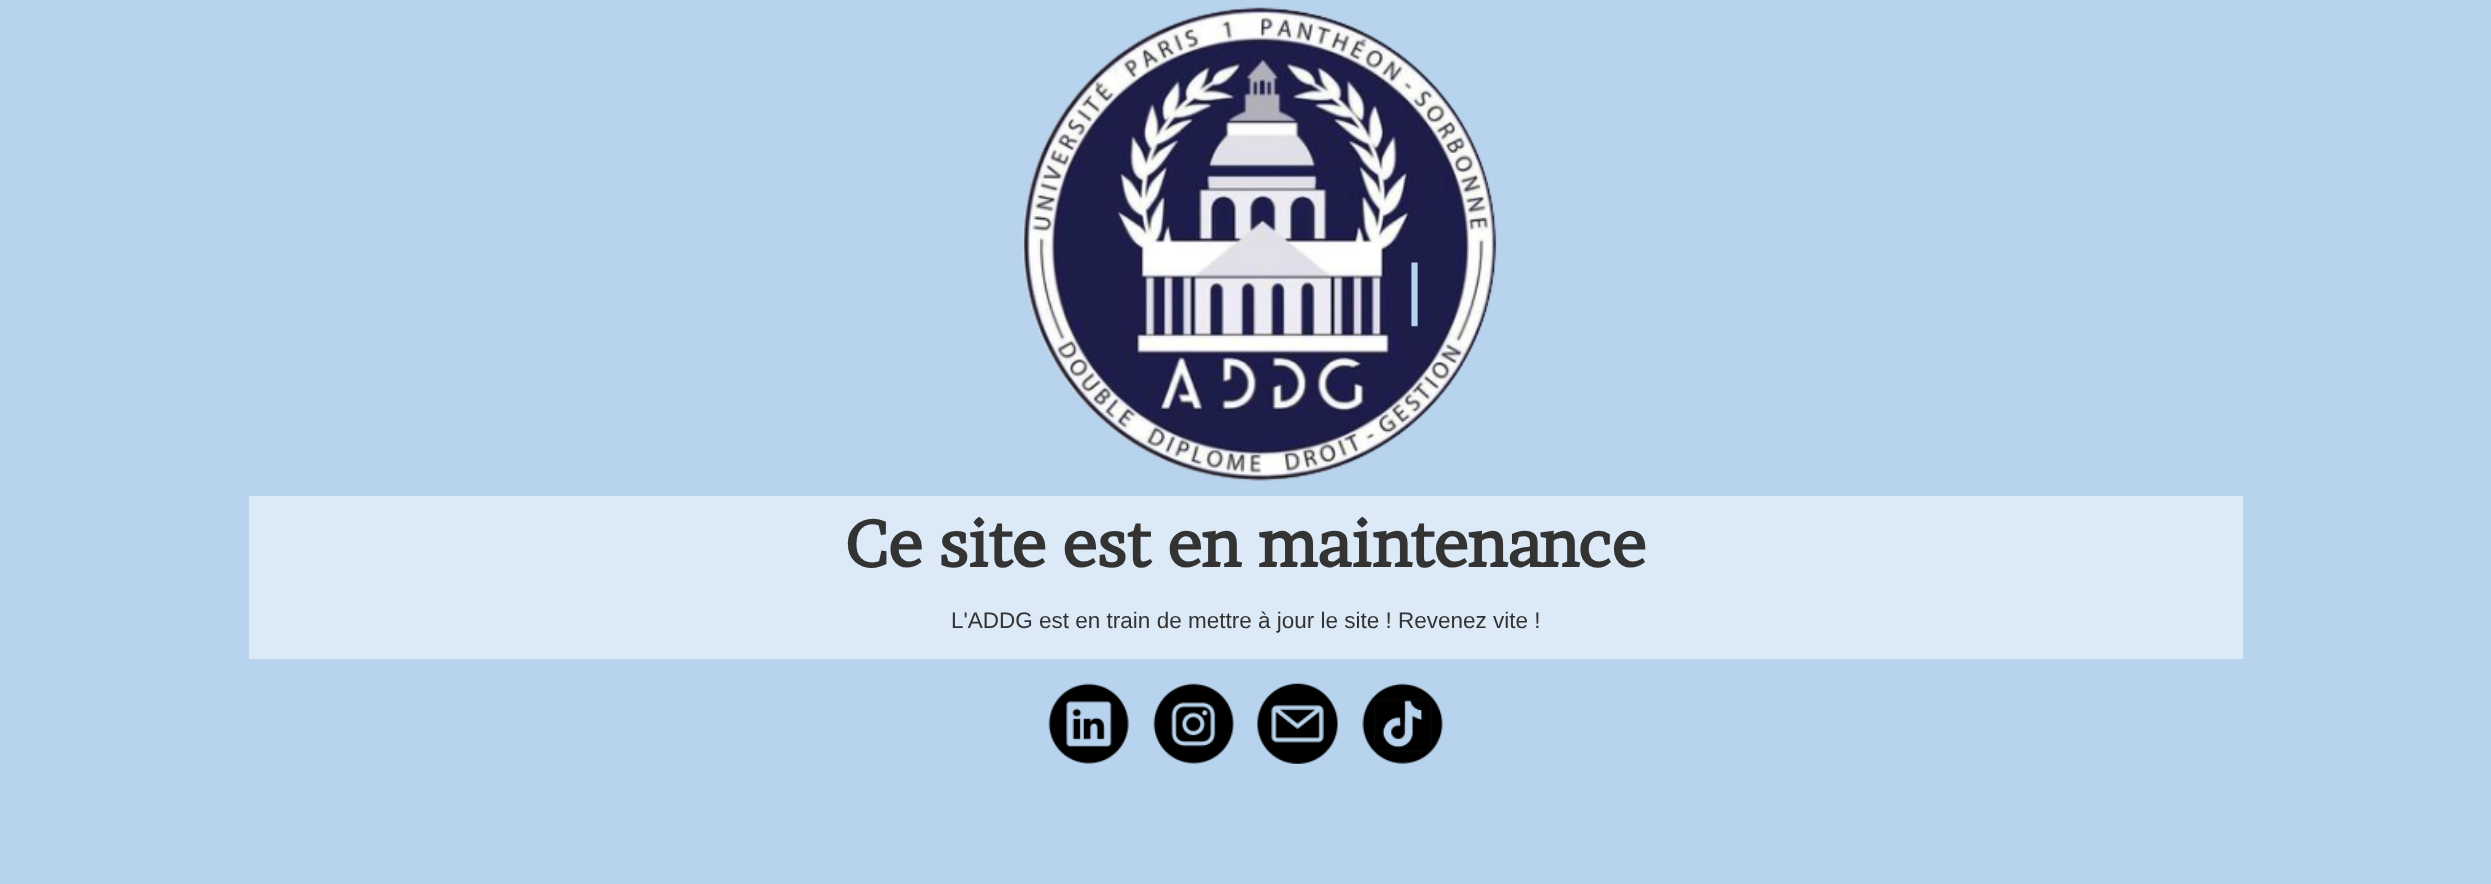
(async () => {
const canvas = document.querySelector("canvas")
canvas.width = 2491
canvas.height = 884
const c = canvas.getContext("2d")
c.miterLimit = 4
c.fontKerning = "normal"
function T(s,x,y){c.fillText(s,x,y)}
function R(x,y,w,h){c.fillRect(x,y,w,h)}
async function I(src,x,y,w,h){const img=new Image();img.src=src;await img.decode();c.drawImage(img,x,y,w,h)}
c.fillStyle="#b8d3ed"
R(0,0,2491,884)
await I("1.png",1022,7,475,474)
c.fillStyle="#dce9f6"
R(249,496,1994,163)
c.font="bold 65px Brawler"
c.fillStyle="#333"
T("Ce site est en maintenance",845,567)
c.font="22.5px Arimo"
T("L'ADDG est en train de mettre à jour le site ! Revenez vite !",951,628)
await I("2.png",1048,683,81,81)
await I("3.png",1153,683,81,81)
await I("4.png",1257,683,81,81)
await I("5.png",1362,683,81,81)
})()
